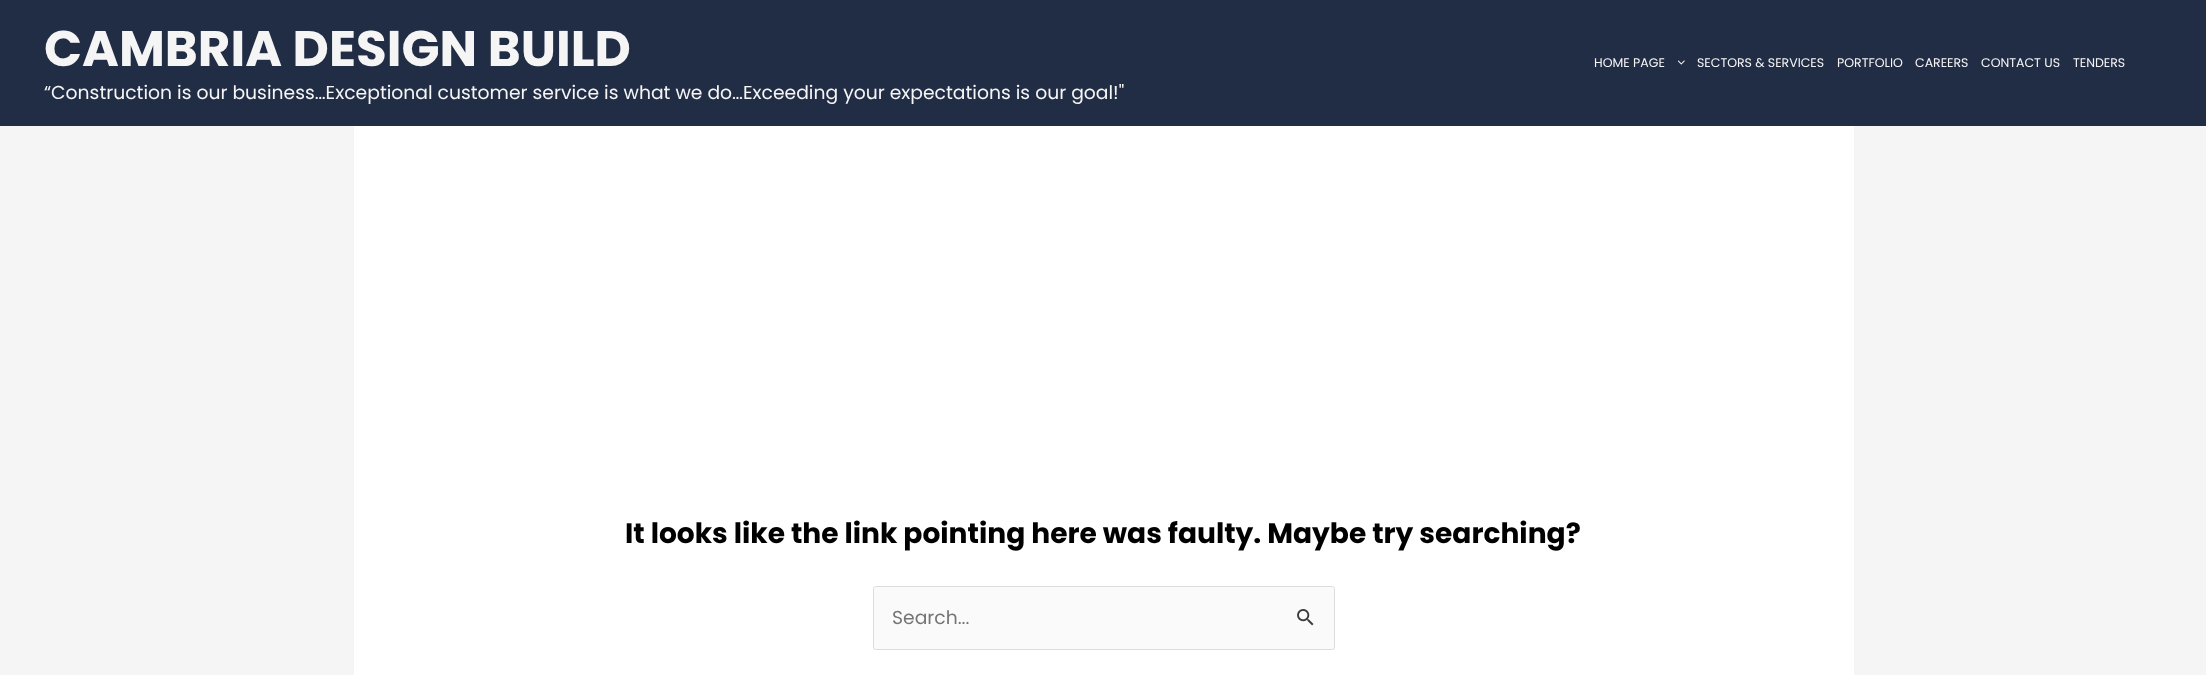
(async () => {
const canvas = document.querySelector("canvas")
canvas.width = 2206
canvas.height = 675
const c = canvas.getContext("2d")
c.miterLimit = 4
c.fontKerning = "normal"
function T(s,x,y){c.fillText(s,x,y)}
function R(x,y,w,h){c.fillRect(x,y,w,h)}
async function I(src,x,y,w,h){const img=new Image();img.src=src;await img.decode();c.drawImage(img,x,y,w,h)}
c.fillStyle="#f5f5f5"
R(0,0,2206,675)
c.fillStyle="#212d45"
R(0,0,2206,126)
c.font="bold 50px Poppins"
c.fillStyle="#f5f5f5"
T("CAMBRIA DESIGN BUILD",44,66)
c.font="18.75px Poppins"
T("“Construction is our business…Exceptional customer service is what we do…Exceeding your expectations is our goal!\"",44,99)
c.font="12.5px Poppins"
T("HOME PAGE",1594,67)
await I("1.png",1678,60,7,5)
T("SECTORS & SERVICES",1697,67)
T("PORTFOLIO",1837,67)
T("CAREERS",1915,67)
T("CONTACT US",1981,67)
T("TENDERS",2073,67)
c.fillStyle="#fff"
R(354,126,1500,549)
c.font="bold 28.1px Poppins"
c.fillStyle="#000"
T("It looks like the link pointing here was faulty. Maybe try searching?",625,543)
c.fillStyle="#fafafa"
c.beginPath()
c.roundRect(873.5,586.5,461,63,2)
c.fill()
c.strokeStyle="#ddd"
c.stroke()
c.font="18.75px Poppins"
c.fillStyle="#757575"
T("Search...",892,624)
await I("2.png",1297,609,17,17)
})()
